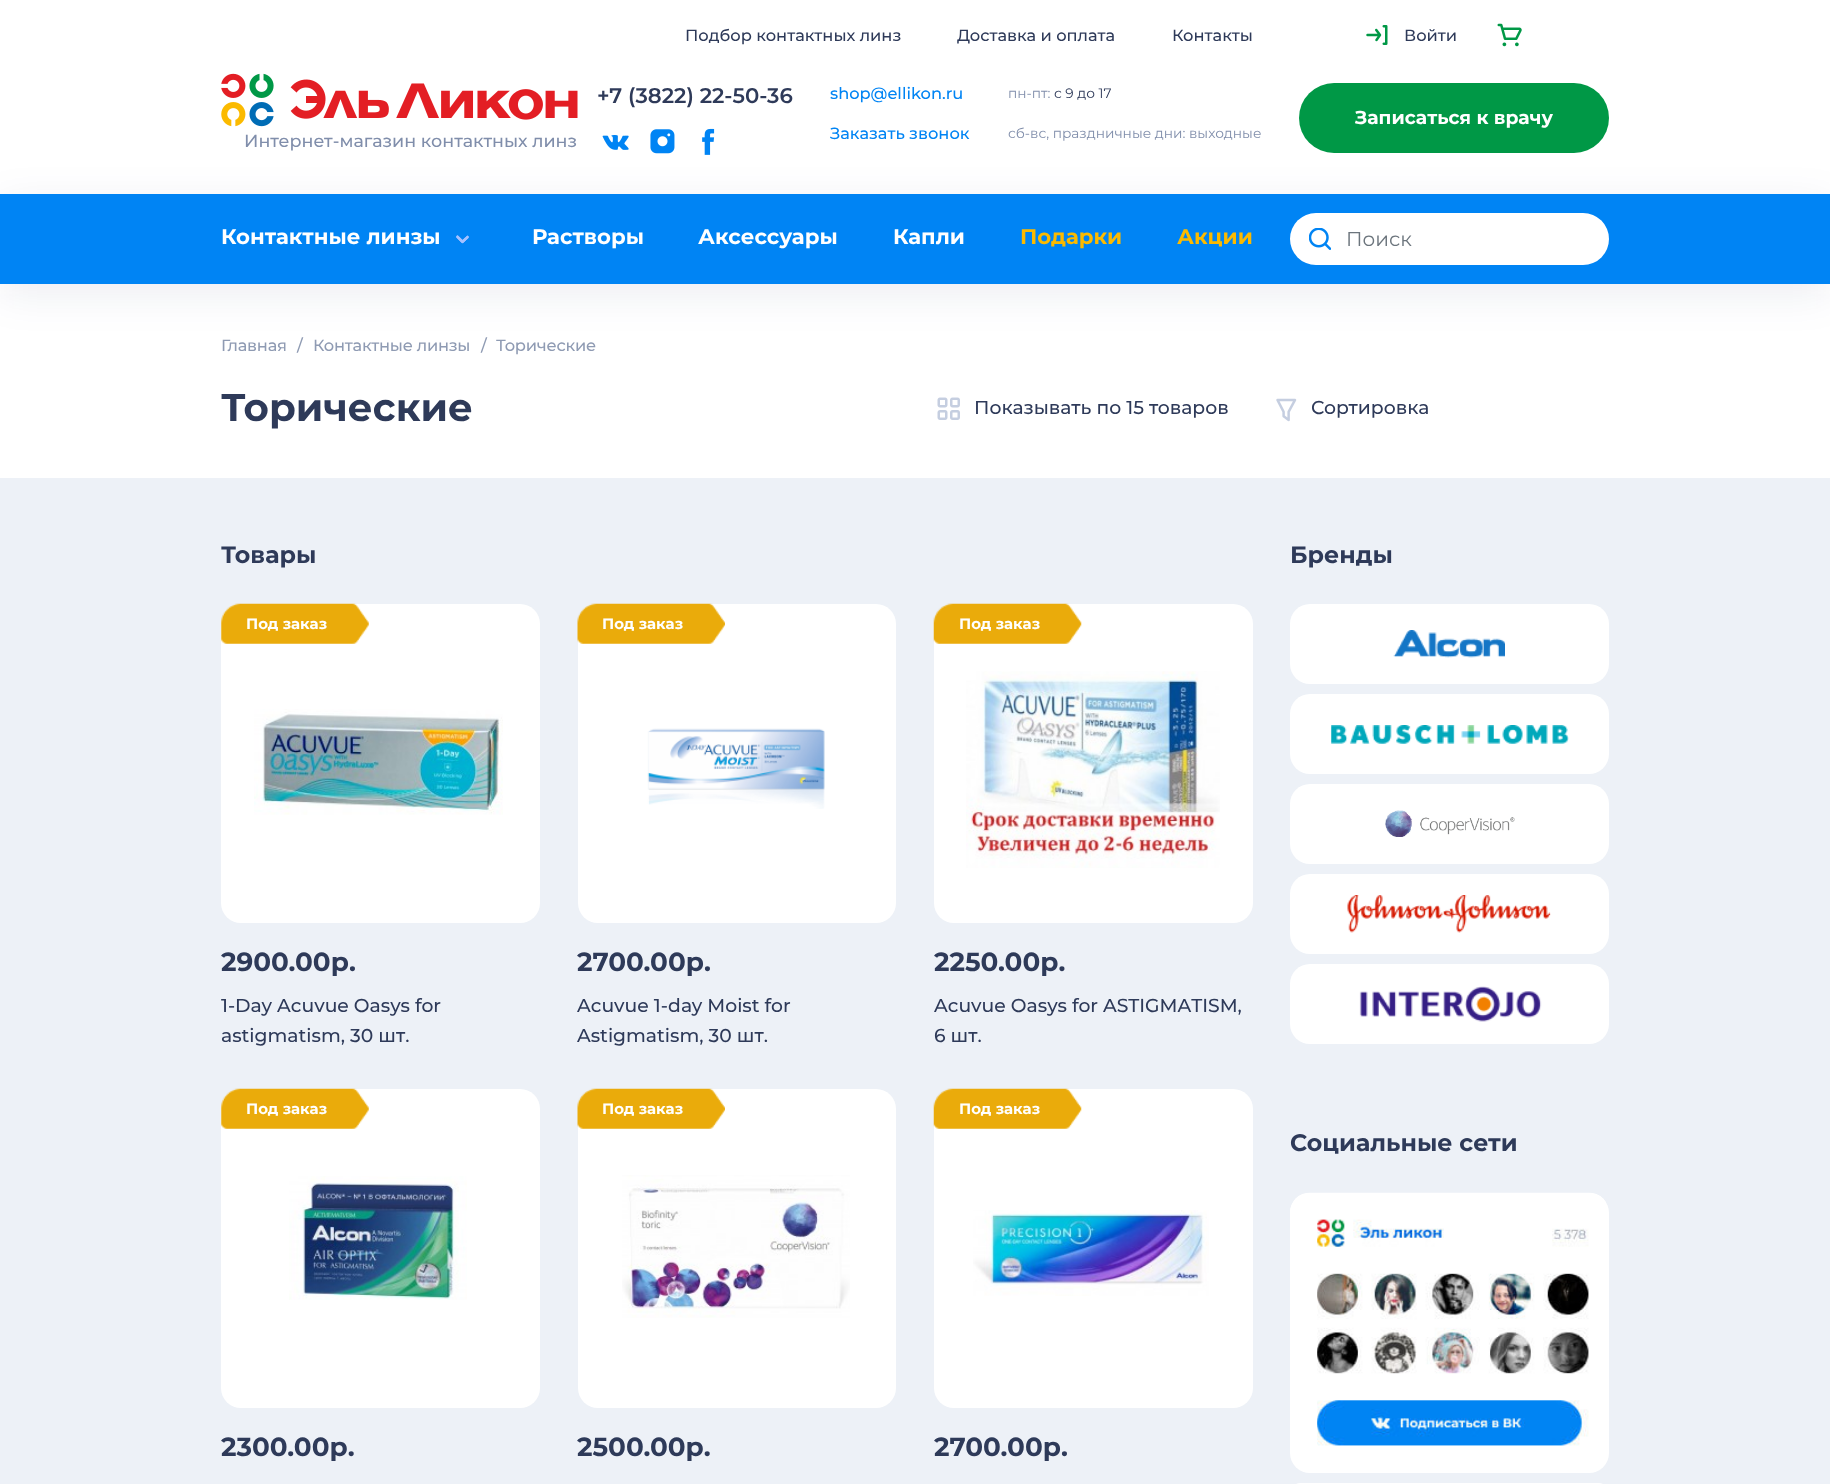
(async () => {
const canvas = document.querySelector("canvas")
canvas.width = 1830
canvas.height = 1484
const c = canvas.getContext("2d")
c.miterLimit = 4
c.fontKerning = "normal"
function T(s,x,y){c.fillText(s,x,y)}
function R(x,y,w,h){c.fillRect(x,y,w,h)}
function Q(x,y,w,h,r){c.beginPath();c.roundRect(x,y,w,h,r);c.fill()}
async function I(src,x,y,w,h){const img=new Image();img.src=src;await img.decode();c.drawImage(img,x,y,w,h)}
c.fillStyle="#edf1f7"
R(0,0,1830,1484)
c.fillStyle="#fff"
R(0,0,1830,194)
c.font="500 16.25px Montserrat"
c.fillStyle="#2e3a59"
T("Подбор контактных линз",685,41)
T("Доставка и оплата",957,41)
T("Контакты",1172,41)
await I("1.png",1366,25,22,20)
T("Войти",1404,41)
await I("2.png",1497,23,25,24)
c.font="600 21.25px Montserrat"
T("+7 (3822) 22-50-36",597,103)
c.fillStyle="#fff"
R(0,284,1830,194)
c.fillStyle="#131a5c14"
c.filter="blur(20px)"
c.beginPath()
c.rect(0,204,1830,90)
c.fill()
c.filter="none"
await I("3.png",602,135,27,15)
await I("4.png",650,129,25,25)
await I("5.png",702,128,13,27)
c.font="500 16.25px Montserrat"
c.fillStyle="#0084f4"
T("shop@ellikon.ru",830,99)
T("Заказать звонок",830,139)
c.font="13.75px Montserrat"
c.fillStyle="#808eab"
T("пн-пт:",1008,98)
c.fillStyle="#2e3a59"
T("с 9 до 17",1054,98)
c.fillStyle="#808eab"
T("сб-вс, праздничные дни: выходные",1008,138)
c.fillStyle="#009846"
Q(1299,83,310,70,35)
c.font="bold 18.75px Montserrat"
c.fillStyle="#fff"
T("Записаться к врачу",1355,124)
await I("6.png",221,73,357,54)
c.font="500 17.5px Montserrat"
c.fillStyle="#808eab"
T("Интернет-магазин контактных линз",244,147)
c.fillStyle="#0084f4"
R(0,194,1830,90)
c.font="bold 21.25px Montserrat"
c.fillStyle="#fff"
T("Контактные линзы",221,244)
await I("7.png",456,235,13,9)
T("Растворы",532,244)
T("Аксессуары",698,244)
T("Капли",893,244)
c.fillStyle="#fbba00"
T("Подарки",1020,244)
T("Акции",1177,244)
c.fillStyle="#fff"
Q(1290,213,319,52,26)
await I("8.png",1309,228,22,22)
c.font="20px Montserrat"
c.fillStyle="#6c757d"
T("Поиск",1346,246)
c.letterSpacing="-0.25px"
c.font="500 16.25px Montserrat"
c.fillStyle="#8f9bb3"
T("Главная",221,351)
T("/",297,351)
T("Контактные линзы",313,351)
T("/",481,351)
T("Торические",496,351)
c.letterSpacing="0px"
c.font="bold 38.75px Montserrat"
c.fillStyle="#2e3a59"
T("Торические",221,421)
await I("9.png",937,397,23,23)
c.font="500 18.75px Montserrat"
T("Показывать по 15 товаров",974,414)
await I("10.png",1276,398,21,24)
T("Сортировка",1311,414)
c.font="bold 23.75px Montserrat"
T("Товары",221,563)
c.fillStyle="#fff"
Q(221,604,319,319,20)
await I("11.png",254,709,249,106)
await I("12.png",221,603,148,41)
c.font="bold 15px Montserrat"
T("Под заказ",246,629)
c.font="bold 26.25px Montserrat"
c.fillStyle="#2e3a59"
T("2900.00р.",221,971)
c.font="500 18.75px Montserrat"
T("1-Day Acuvue Oasys for",221,1012)
T("astigmatism, 30 шт.",221,1042)
c.fillStyle="#fff"
Q(578,604,318,319,20)
await I("13.png",647,728,178,81)
await I("14.png",577,603,148,41)
c.font="bold 15px Montserrat"
T("Под заказ",602,629)
c.font="bold 26.25px Montserrat"
c.fillStyle="#2e3a59"
T("2700.00р.",577,971)
c.font="500 18.75px Montserrat"
T("Acuvue 1-day Moist for",577,1012)
T("Astigmatism, 30 шт.",577,1042)
c.fillStyle="#fff"
Q(934,604,319,319,20)
await I("15.png",966,671,254,197)
await I("16.png",933,603,149,41)
c.font="bold 15px Montserrat"
T("Под заказ",959,629)
c.font="bold 26.25px Montserrat"
c.fillStyle="#2e3a59"
T("2250.00р.",934,971)
c.font="500 18.75px Montserrat"
T("Acuvue Oasys for ASTIGMATISM,",934,1012)
T("6 шт.",934,1042)
c.fillStyle="#fff"
Q(221,1089,319,319,20)
await I("17.png",289,1176,178,124)
await I("12.png",221,1088,148,41)
c.font="bold 15px Montserrat"
T("Под заказ",246,1114)
c.font="bold 26.25px Montserrat"
c.fillStyle="#2e3a59"
T("2300.00р.",221,1456)
c.fillStyle="#fff"
Q(578,1089,318,319,20)
await I("18.png",622,1175,228,143)
await I("14.png",577,1088,148,41)
c.font="bold 15px Montserrat"
T("Под заказ",602,1114)
c.font="bold 26.25px Montserrat"
c.fillStyle="#2e3a59"
T("2500.00р.",577,1456)
c.fillStyle="#fff"
Q(934,1089,319,319,20)
await I("19.png",973,1210,236,86)
await I("16.png",933,1088,149,41)
c.font="bold 15px Montserrat"
T("Под заказ",959,1114)
c.font="bold 26.25px Montserrat"
c.fillStyle="#2e3a59"
T("2700.00р.",934,1456)
c.font="bold 23.75px Montserrat"
T("Бренды",1290,563)
c.fillStyle="#fff"
Q(1290,604,319,80,20)
await I("20.png",1393,630,112,28)
Q(1290,694,319,80,20)
await I("21.png",1331,725,238,19)
Q(1290,784,319,80,20)
await I("22.png",1385,810,130,27)
Q(1290,874,319,80,20)
await I("23.png",1347,895,204,38)
Q(1290,964,319,80,20)
await I("24.png",1359,986,183,36)
c.fillStyle="#2e3a59"
T("Социальные сети",1290,1151)
c.fillStyle="#fff"
Q(1290,1193,319,280,20)
await I("25.png",1290,1192,316,254)
Q(1290,1483,319,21,20)
})()
